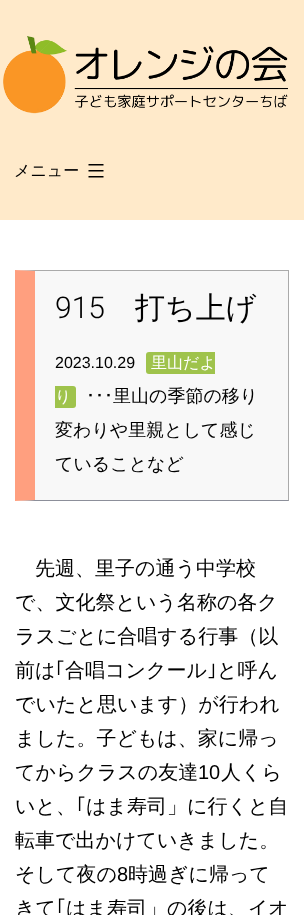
(async () => {
const canvas = document.querySelector("canvas")
canvas.width = 304
canvas.height = 915
const c = canvas.getContext("2d")
c.miterLimit = 4
c.fontKerning = "normal"
function T(s,x,y){c.fillText(s,x,y)}
function R(x,y,w,h){c.fillRect(x,y,w,h)}
async function I(src,x,y,w,h){const img=new Image();img.src=src;await img.decode();c.drawImage(img,x,y,w,h)}
let path
c.fillStyle="#fff"
R(0,0,304,915)
c.fillStyle="#ffeaca"
R(0,0,304,220)
await I("1.png",3,36,285,78)
c.font="500 16px WenQuanYi Zen Hei"
c.fillStyle="#000"
T("メニュー",14,176)
await I("2.png",88,164,16,14)
c.fillStyle="#f8f8f8"
R(35,271,253,229)
c.fillStyle="#aaa"
path = new Path2D("M15 270h274l-1 1h-253z")
c.fill(path)
R(288,270,1,231)
c.fillStyle="#8c8f9a"
path = new Path2D("M289 501h-274l20-1h253z")
c.fill(path)
c.fillStyle="#ff9f7f"
path = new Path2D("M15 501v-231l20 1v229z")
c.fill(path)
c.font="300 30px Roboto"
c.fillStyle="#000"
T("915",55,318)
c.font="500 30px WenQuanYi Zen Hei"
T("打ち上げ",135,318)
c.font="16px Liberation Sans"
T("2023.10.29",55,368)
c.fillStyle="#9fc34c"
c.beginPath()
c.roundRect(146,352,69,22,[3,0,0,3])
c.fill()
c.font="500 16px WenQuanYi Zen Hei"
c.fillStyle="#fff"
T("里山だよ",151,368)
c.fillStyle="#9fc34c"
c.beginPath()
c.roundRect(55,386,21,22,[0,3,3,0])
c.fill()
c.fillStyle="#fff"
T("り",55,402)
c.font="18px IPAPGothic"
c.fillStyle="#000"
T("･･･",86,402)
c.font="500 18px WenQuanYi Zen Hei"
T("里山の季節の移り",113,402)
T("変わりや里親として感じ",55,436)
T("ていることなど",55,470)
c.font="500 20px WenQuanYi Zen Hei"
T("先週、里子の通う中学校",35,575)
T("で、文化祭という名称の各ク",15,609)
T("ラスごとに合唱する行事（以",15,643)
T("前は",15,677)
c.font="20px IPAPGothic"
T("｢",55,677)
c.font="500 20px WenQuanYi Zen Hei"
T("合唱コンクール",65,677)
c.font="20px IPAPGothic"
T("｣",207,677)
c.font="500 20px WenQuanYi Zen Hei"
T("と呼ん",217,677)
T("でいたと思います）が行われ",15,711)
T("ました。子どもは、家に帰っ",15,745)
T("てからクラスの友達",15,779)
c.font="20px Liberation Sans"
T("10",198,779)
c.font="500 20px WenQuanYi Zen Hei"
T("人くら",221,779)
T("いと、",15,813)
c.font="20px IPAPGothic"
T("｢",76,813)
c.font="500 20px WenQuanYi Zen Hei"
T("はま寿司」に行くと自",86,813)
T("転車で出かけていきました。",15,847)
T("そして夜の",15,881)
c.font="20px Liberation Sans"
T("8",117,881)
c.font="500 20px WenQuanYi Zen Hei"
T("時過ぎに帰って",128,881)
T("きて",15,915)
c.font="20px IPAPGothic"
T("｢",56,915)
c.font="500 20px WenQuanYi Zen Hei"
T("はま寿司」の後は、イオ",66,915)
})()
